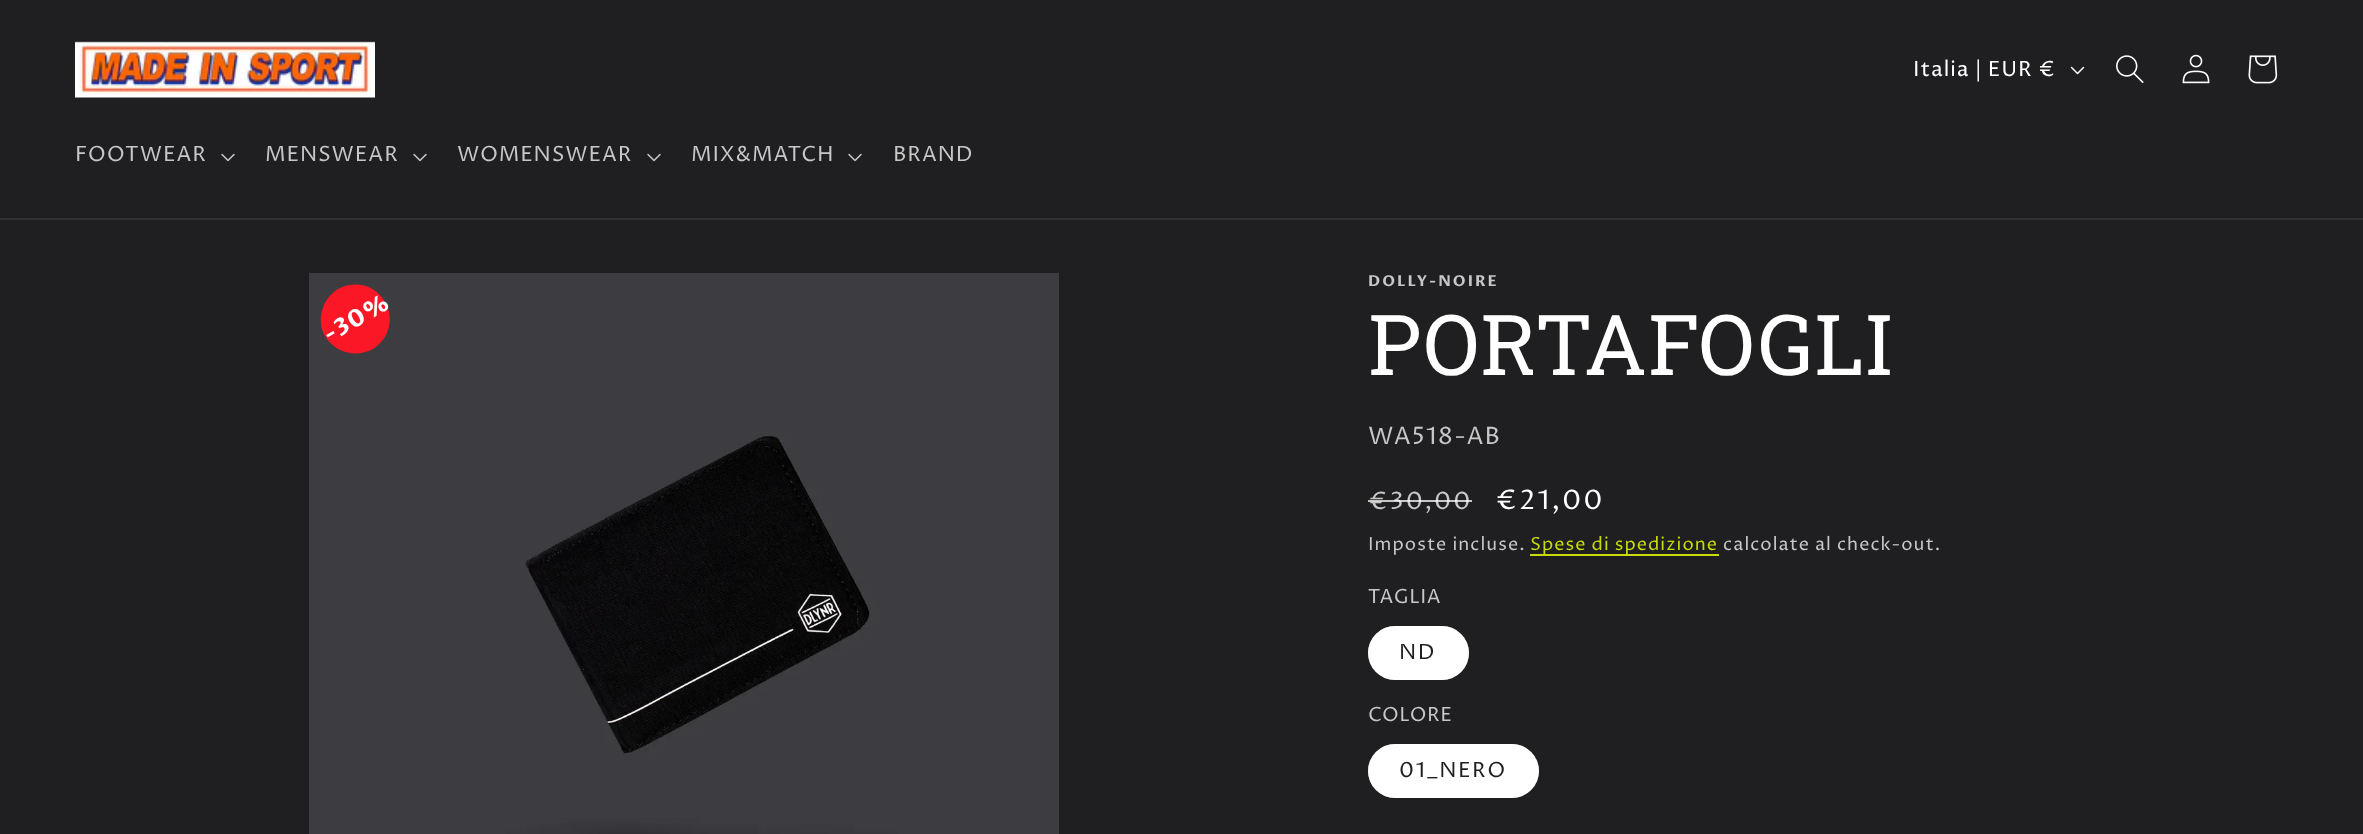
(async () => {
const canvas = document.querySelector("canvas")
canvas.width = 2363
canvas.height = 834
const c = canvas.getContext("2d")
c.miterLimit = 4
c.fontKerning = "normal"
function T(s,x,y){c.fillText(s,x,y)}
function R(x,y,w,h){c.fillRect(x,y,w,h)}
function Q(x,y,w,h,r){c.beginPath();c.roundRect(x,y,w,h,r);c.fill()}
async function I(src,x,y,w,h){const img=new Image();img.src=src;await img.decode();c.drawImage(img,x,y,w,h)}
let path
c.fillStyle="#1f1f21"
R(0,0,2363,834)
c.fillStyle="#313133"
R(0,218,2363,2)
await I("1.png",75,41,300,57)
c.letterSpacing="0.9px"
c.font="21px Proza Libre"
c.fillStyle="#fff"
T("Italia | EUR €",1913,76)
await I("2.png",2070,66,15,9)
await I("3.png",2116,55,28,28)
await I("4.png",2182,54,28,30)
await I("5.png",2248,55,30,29)
c.fillStyle="#c7c7c8"
T("FOOTWEAR",75,161)
await I("6.png",221,153,14,9)
T("MENSWEAR",265,161)
await I("6.png",413,153,14,9)
T("WOMENSWEAR",457,161)
await I("6.png",647,153,14,9)
T("MIX&MATCH",691,161)
await I("6.png",848,153,14,9)
T("BRAND",893,161)
await I("7.png",309,273,750,561)
c.fillStyle="#fc1726"
path = new Path2D("M338 289c17-9 38-4 47 13c10 16 4 37-12 47c-17 9-38 4-48-13c-9-16-3-37 13-47z")
c.fill(path)
c.font="bold 24px Proza Libre"
c.fillStyle="#fff"
c.save()
c.translate(329,343)
c.rotate(-30 * Math.PI / 180)
c.fillText("-",0,0)
c.restore()
c.save()
c.translate(340,337)
c.rotate(-30 * Math.PI / 180)
c.fillText("30%",0,0)
c.restore()
c.letterSpacing="2px"
c.font="bold 15px Proza Libre"
c.fillStyle="#c7c7c8"
T("DOLLY-NOIRE",1368,286)
c.letterSpacing="1.25px"
c.font="84px Roboto Slab"
c.fillStyle="#fff"
T("PORTAFOGLI",1368,375)
c.letterSpacing="0.9px"
c.font="24px Proza Libre"
c.fillStyle="#c7c7c8"
T("WA518-AB",1368,444)
c.letterSpacing="2px"
T("€30,00",1368,509)
c.fillStyle="#ffffffbf"
R(1368,500,104,2)
c.font="27px Proza Libre"
c.fillStyle="#fff"
T("€21,00",1495,509)
c.letterSpacing="1.05px"
c.font="18px Proza Libre"
c.fillStyle="#c7c7c8"
T("Imposte incluse.",1368,550)
c.fillStyle="#c6db07"
R(1530,554,189,2)
T("Spese di spedizione",1530,550)
c.fillStyle="#c7c7c8"
T("calcolate al check-out.",1723,550)
c.letterSpacing="0.5px"
c.font="19.5px Proza Libre"
T("TAGLIA",1368,603)
c.fillStyle="#fff"
Q(1368,626,101,54,27)
c.beginPath()
c.roundRect(1369,627,99,52,26)
c.strokeStyle="#ffffff8c"
c.lineWidth=2
c.stroke()
c.letterSpacing="1.5px"
c.font="21px Proza Libre"
c.fillStyle="#1f1f21"
T("ND",1399,659)
c.letterSpacing="0.5px"
c.font="19.5px Proza Libre"
c.fillStyle="#c7c7c8"
T("COLORE",1368,721)
c.fillStyle="#fff"
Q(1368,744,171,54,27)
c.beginPath()
c.roundRect(1369,745,169,52,26)
c.stroke()
c.letterSpacing="1.5px"
c.font="21px Proza Libre"
c.fillStyle="#1f1f21"
T("01_NERO",1399,777)
})()
